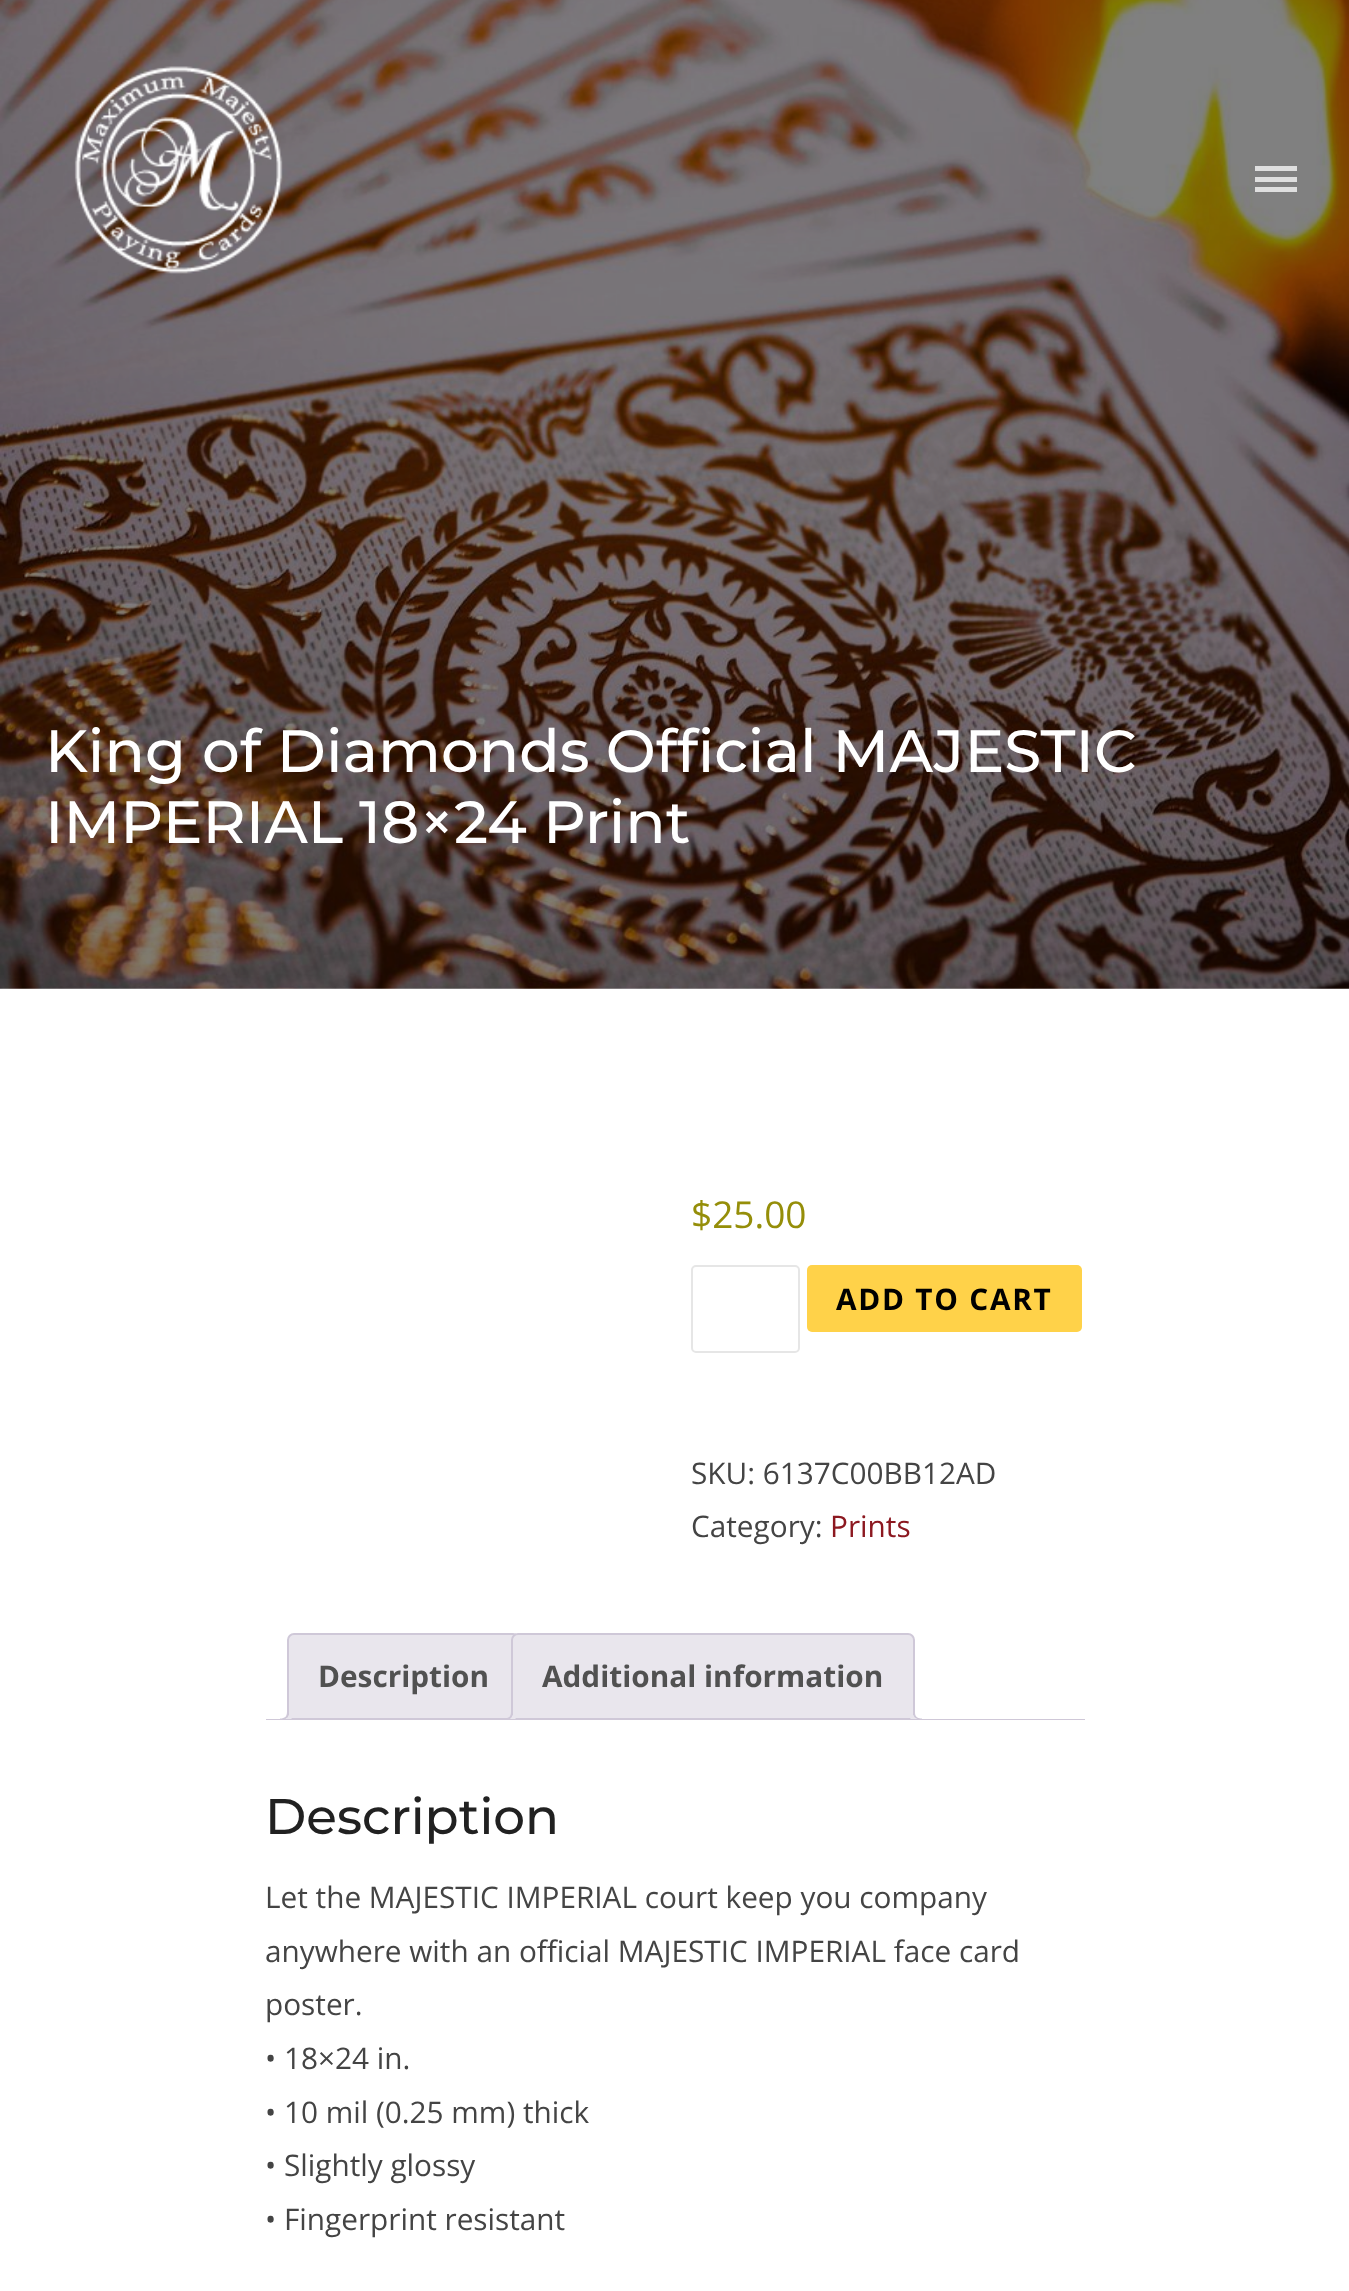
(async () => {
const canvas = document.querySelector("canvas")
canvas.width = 1349
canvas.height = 2291
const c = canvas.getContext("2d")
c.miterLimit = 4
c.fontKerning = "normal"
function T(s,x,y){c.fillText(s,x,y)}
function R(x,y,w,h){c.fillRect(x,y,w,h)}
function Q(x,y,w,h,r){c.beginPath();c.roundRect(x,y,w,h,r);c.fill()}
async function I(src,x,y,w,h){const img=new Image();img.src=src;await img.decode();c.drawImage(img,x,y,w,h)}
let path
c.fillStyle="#fff"
R(0,0,1349,2291)
await I("1.png",0,0,1349,989)
await I("2.png",74,66,209,208)
c.fillStyle="#dfdfdf"
R(1255,166,42,5)
R(1255,177,42,5)
R(1255,187,42,5)
c.font="100 59.5px Montserrat"
c.fillStyle="#fff"
T("King of Diamonds Official MAJESTIC",45,772)
T("IMPERIAL 18×24 Print",45,843)
c.font="37px Open Sans"
c.fillStyle="#958e09"
T("$25.00",691,1228)
c.beginPath()
c.roundRect(692,1266,107,86,4)
c.strokeStyle="#e6e6e6"
c.lineWidth=2
c.stroke()
c.fillStyle="#ffd249"
Q(807,1265,275,67,5)
c.letterSpacing="1.75px"
c.font="bold 29.75px Open Sans"
c.fillStyle="#000"
T("ADD TO CART",836,1310)
c.letterSpacing="0px"
c.font="29.75px Open Sans"
c.fillStyle="#444"
T("SKU: 6137C00BB12AD",691,1484)
T("Category:",691,1537)
c.fillStyle="#8c1820"
T("Prints",830,1537)
c.fillStyle="#e9e6ed"
c.beginPath()
c.roundRect(288,1634,231,85,[6,6,0,0])
c.fill()
c.strokeStyle="#cfc8d8"
c.stroke()
c.font="bold 29.75px Open Sans"
c.fillStyle="#515151"
T("Description",318,1687)
c.save()
c.beginPath()
c.rect(266,1633,819,87)
c.clip()
c.fillStyle="#e9e6ed"
path = new Path2D("M284 1720v4c6 0 8-3.5 8-9h-3.5c-.5 2.5-2.5 4-4.5 5z")
c.fill(path)
c.restore()
c.fillStyle="#cfc8d8"
path = new Path2D("M280 1711.5h9c0 6-3 8.5-9 8.5zm0 0h7c0 5-2 7-7 7z")
c.fill(path,"evenodd")
c.fillStyle="#e9e6ed"
c.beginPath()
c.roundRect(512,1634,402,85,[6,6,0,0])
c.fill()
c.stroke()
c.fillStyle="#515151"
T("Additional information",542,1687)
c.save()
c.beginPath()
c.rect(266,1633,819,87)
c.clip()
c.fillStyle="#e9e6ed"
path = new Path2D("M508 1720v4c6 0 8-3.5 8-9h-3.5c-.5 2.5-2.5 4-4.5 5z")
c.fill(path)
c.restore()
c.fillStyle="#cfc8d8"
path = new Path2D("M504 1711.5h9c0 6-3 8.5-9 8.5zm0 0h7c0 5-2 7-7 7z")
c.fill(path,"evenodd")
c.save()
c.beginPath()
c.rect(266,1633,819,87)
c.clip()
c.fillStyle="#e9e6ed"
path = new Path2D("M910 1715c0 6.5 2.5 9 9 9v-4c-2.5-.5-4.5-2.5-5.5-5z")
c.fill(path)
c.restore()
path = new Path2D("M913.5 1711.5h8.5v8.5c-4 0-8.5-1.5-8.5-7zm1.5 0h7v7c-3 0-7-1-7-5.5z")
c.fill(path,"evenodd")
R(266,1719,819,1)
c.font="100 50px Montserrat"
c.fillStyle="#212121"
T("Description",265,1834)
c.font="29.75px Open Sans"
c.fillStyle="#444"
T("Let the MAJESTIC IMPERIAL court keep you company",265,1908)
T("anywhere with an official MAJESTIC IMPERIAL face card",265,1962)
T("poster.",265,2015)
T("• 18×24 in.",265,2069)
T("• 10 mil (0.25 mm) thick",265,2123)
T("• Slightly glossy",265,2176)
T("• Fingerprint resistant",265,2230)
})()
